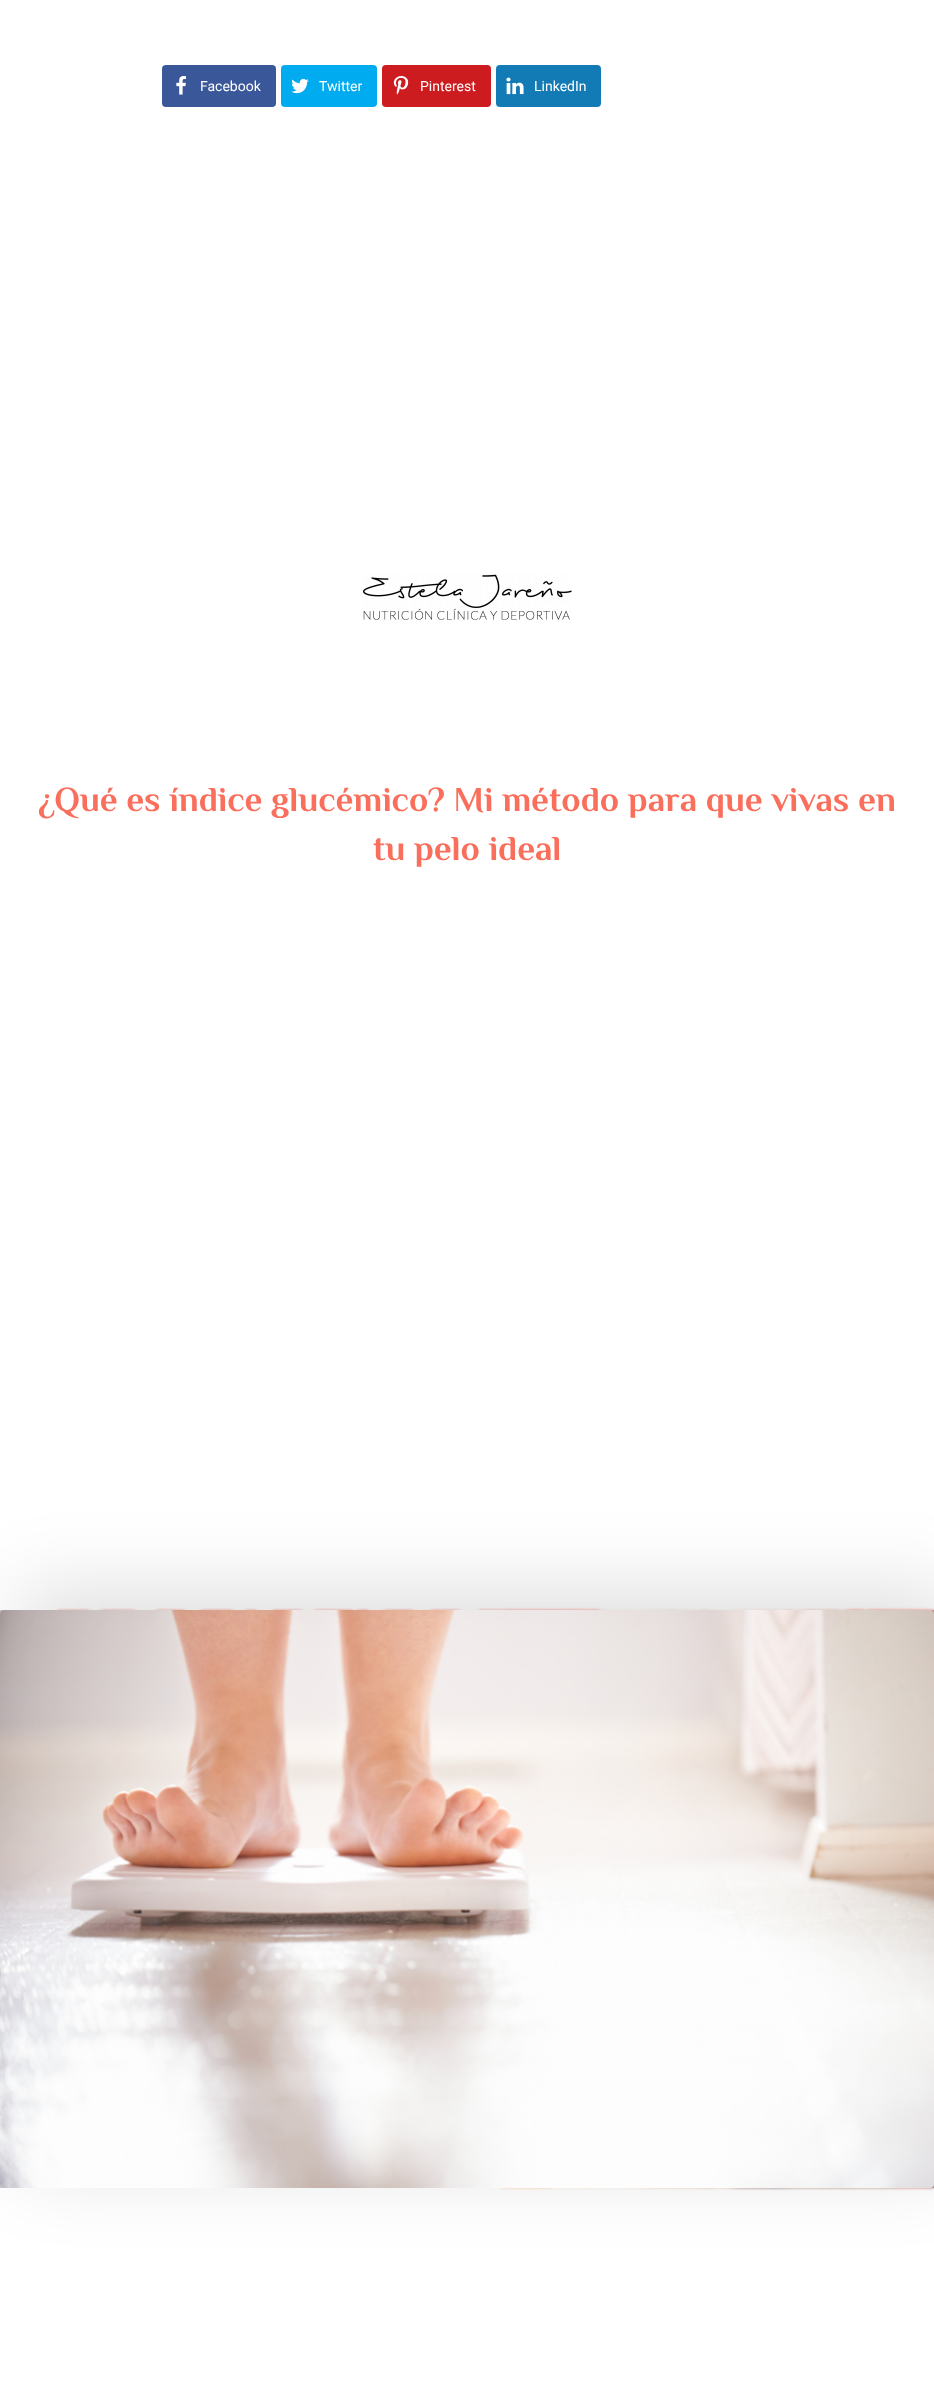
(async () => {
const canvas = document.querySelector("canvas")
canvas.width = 934
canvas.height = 2395
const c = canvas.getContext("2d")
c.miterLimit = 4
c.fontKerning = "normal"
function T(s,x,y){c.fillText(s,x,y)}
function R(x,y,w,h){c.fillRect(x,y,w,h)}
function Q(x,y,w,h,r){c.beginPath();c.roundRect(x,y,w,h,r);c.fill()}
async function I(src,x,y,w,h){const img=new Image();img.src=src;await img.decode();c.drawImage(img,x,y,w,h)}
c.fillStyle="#fff"
R(0,0,934,2395)
c.fillStyle="#3a579a"
Q(162,65,114,42,4)
await I("1.png",176,76,10,19)
c.font="14px Roboto"
c.fillStyle="#fff"
T("Facebook",200,91)
c.fillStyle="#00abf0"
Q(281,65,96,42,4)
await I("2.png",291,78,18,16)
c.fillStyle="#fff"
T("Twitter",319,91)
c.fillStyle="#cd1c1f"
Q(382,65,109,42,4)
await I("3.png",393,76,16,19)
c.fillStyle="#fff"
T("Pinterest",420,91)
c.fillStyle="#127bb6"
Q(496,65,105,42,4)
await I("4.png",506,77,18,18)
c.fillStyle="#fff"
T("LinkedIn",534,91)
await I("5.png",363,574,209,46)
c.font="bold 35px Philosopher"
c.fillStyle="#fa6e5c"
T("¿Qué es índice glucémico? Mi método para que vivas en",38,811)
T("tu pelo ideal",373,860)
c.fillStyle="#bcbcbc"
R(0,1610,934,578)
await I("7.png",0,1607,934,584)
c.fillStyle="#00000021"
c.filter="blur(40px)"
c.beginPath()
c.roundRect(20,1590,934,578,4)
c.fill()
c.filter="none"
await I("6.png",0,1610,934,578)
})()
